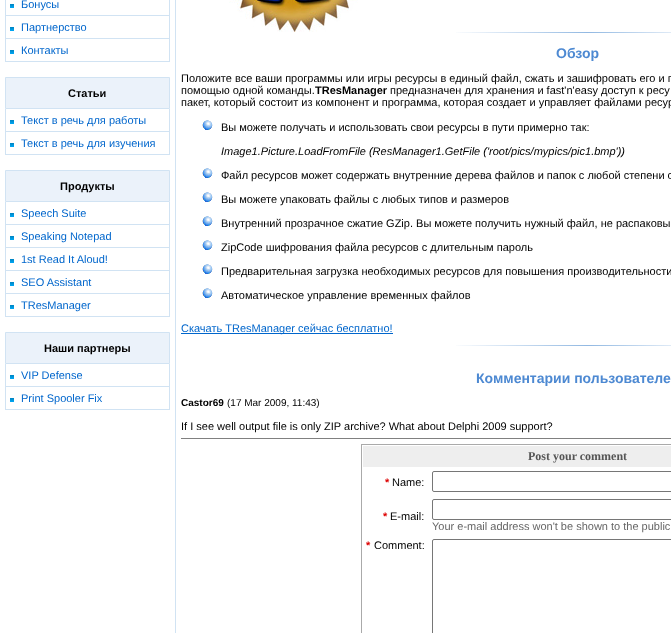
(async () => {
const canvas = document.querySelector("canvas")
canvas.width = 671
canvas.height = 633
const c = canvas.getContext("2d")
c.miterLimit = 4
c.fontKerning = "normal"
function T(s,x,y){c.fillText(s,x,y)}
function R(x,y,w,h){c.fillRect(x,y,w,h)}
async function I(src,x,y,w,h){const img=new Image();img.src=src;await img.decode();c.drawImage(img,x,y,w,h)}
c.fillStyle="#fff"
R(0,0,671,633)
c.fillStyle="#d1e3f3"
R(175,0,1,633)
await I("1.png",10,4,4,4)
R(169,0,1,62)
R(5,15,165,1)
R(5,0,1,16)
c.font="11px Liberation Sans"
c.fillStyle="#06c"
T("Бонусы",21,8)
await I("1.png",10,27,4,4)
c.fillStyle="#d1e3f3"
R(5,38,165,1)
R(5,16,1,23)
c.fillStyle="#06c"
T("Партнерство",21,31)
await I("1.png",10,50,4,4)
c.fillStyle="#d1e3f3"
R(5,61,165,1)
R(5,39,1,23)
c.fillStyle="#06c"
T("Контакты",21,54)
c.fillStyle="#ebf2fa"
c.beginPath()
c.rect(5.5,77.5,164,31)
c.fill()
c.strokeStyle="#d1e3f3"
c.stroke()
c.font="bold 11px Liberation Sans"
c.fillStyle="#000"
T("Статьи",68,97)
await I("1.png",10,120,4,4)
c.fillStyle="#d1e3f3"
R(169,109,1,46)
R(5,131,165,1)
R(5,109,1,23)
c.font="11px Liberation Sans"
c.fillStyle="#06c"
T("Текст в речь для работы",21,124)
await I("1.png",10,143,4,4)
c.fillStyle="#d1e3f3"
R(5,154,165,1)
R(5,132,1,23)
c.fillStyle="#06c"
T("Текст в речь для изучения",21,147)
c.fillStyle="#ebf2fa"
c.beginPath()
c.rect(5.5,170.5,164,31)
c.fill()
c.stroke()
c.font="bold 11px Liberation Sans"
c.fillStyle="#000"
T("Продукты",60,190)
await I("1.png",10,213,4,4)
c.fillStyle="#d1e3f3"
R(169,202,1,115)
R(5,224,165,1)
R(5,202,1,23)
c.font="11px Liberation Sans"
c.fillStyle="#06c"
T("Speech Suite",21,217)
await I("1.png",10,236,4,4)
c.fillStyle="#d1e3f3"
R(5,247,165,1)
R(5,225,1,23)
c.fillStyle="#06c"
T("Speaking Notepad",21,240)
await I("1.png",10,259,4,4)
c.fillStyle="#d1e3f3"
R(5,270,165,1)
R(5,248,1,23)
c.fillStyle="#06c"
T("1st Read It Aloud!",21,263)
await I("1.png",10,282,4,4)
c.fillStyle="#d1e3f3"
R(5,293,165,1)
R(5,271,1,23)
c.fillStyle="#06c"
T("SEO Assistant",21,286)
await I("1.png",10,305,4,4)
c.fillStyle="#d1e3f3"
R(5,316,165,1)
R(5,294,1,23)
c.fillStyle="#06c"
T("TResManager",21,309)
c.fillStyle="#ebf2fa"
c.beginPath()
c.rect(5.5,332.5,164,31)
c.fill()
c.stroke()
c.font="bold 11px Liberation Sans"
c.fillStyle="#000"
T("Наши партнеры",44,352)
await I("1.png",10,375,4,4)
c.fillStyle="#d1e3f3"
R(169,364,1,46)
R(5,386,165,1)
R(5,364,1,23)
c.font="11px Liberation Sans"
c.fillStyle="#06c"
T("VIP Defense",21,379)
await I("1.png",10,398,4,4)
c.fillStyle="#d1e3f3"
R(5,409,165,1)
R(5,387,1,23)
c.fillStyle="#06c"
T("Print Spooler Fix",21,402)
await I("2.png",229,0,129,32)
await I("3.png",456,32,215,1)
c.font="bold 14px Liberation Sans"
c.fillStyle="#4d89d2"
T("Обзор",556,58)
c.font="11px Liberation Sans"
c.fillStyle="#000"
T("Положите все ваши программы или игры ресурсы в единый файл, сжать и зашифровать его и п",181,82)
T("помощью одной команды.",181,94)
c.font="bold 11px Liberation Sans"
T("TResManager",315,94)
c.font="11px Liberation Sans"
T("предназначен для хранения и fast'n'easy доступ к ресу",390,94)
T("пакет, который состоит из компонент и программа, которая создает и управляет файлами ресур",181,106)
await I("4.png",202,120,11,10)
T("Вы можете получать и использовать свои ресурсы в пути примерно так:",221,131)
c.font="italic 11px Liberation Sans"
T("Image1.Picture.LoadFromFile (ResManager1.GetFile ('root/pics/mypics/pic1.bmp'))",221,155)
await I("4.png",202,168,11,10)
c.font="11px Liberation Sans"
T("Файл ресурсов может содержать внутренние дерева файлов и папок с любой степени с",221,179)
await I("4.png",202,192,11,10)
T("Вы можете упаковать файлы с любых типов и размеров",221,203)
await I("4.png",202,216,11,10)
T("Внутренний прозрачное сжатие GZip. Вы можете получить нужный файл, не распаковы",221,227)
await I("4.png",202,240,11,10)
T("ZipCode шифрования файла ресурсов с длительным пароль",221,251)
await I("4.png",202,264,11,10)
T("Предварительная загрузка необходимых ресурсов для повышения производительности",221,275)
await I("4.png",202,288,11,10)
T("Автоматическое управление временных файлов",221,299)
c.fillStyle="#06c"
R(181,333,212,1)
T("Скачать TResManager сейчас бесплатно!",181,332)
await I("3.png",456,345,215,1)
c.font="bold 14px Liberation Sans"
c.fillStyle="#4d89d2"
T("Комментарии пользователе",476,383)
c.font="bold 10px Liberation Sans"
c.fillStyle="#000"
T("Castor69",181,406)
c.font="10px Liberation Sans"
T("(17 Mar 2009, 11:43)",227,406)
c.font="11px Liberation Sans"
T("If I see well output file is only ZIP archive? What about Delphi 2009 support?",181,430)
c.fillStyle="#808080"
R(181,438,490,1)
c.strokeStyle="#aaa"
c.strokeRect(361.5,444.5,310,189)
c.fillStyle="#eee"
R(363,446,308,21)
c.font="bold 12px Liberation Serif"
c.fillStyle="#555"
T("Post your comment",528,460)
c.font="bold 11px Liberation Sans"
c.fillStyle="#d00"
T("*",385,486)
c.font="11px Liberation Sans"
c.fillStyle="#000"
T("Name:",392,486)
c.beginPath()
c.roundRect(432.5,471.5,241,20,1.5)
c.strokeStyle="#767676"
c.stroke()
c.font="bold 11px Liberation Sans"
c.fillStyle="#d00"
T("*",383,520)
c.font="11px Liberation Sans"
c.fillStyle="#000"
T("E-mail:",390,520)
c.beginPath()
c.roundRect(432.5,499.5,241,20,1.5)
c.stroke()
c.fillStyle="#666"
T("Your e-mail address won't be shown to the public",432,530)
c.font="bold 11px Liberation Sans"
c.fillStyle="#d00"
T("*",366,549)
c.font="11px Liberation Sans"
c.fillStyle="#000"
T("Comment:",374,549)
c.beginPath()
c.roundRect(432.5,539.5,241,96,1.5)
c.stroke()
})()
